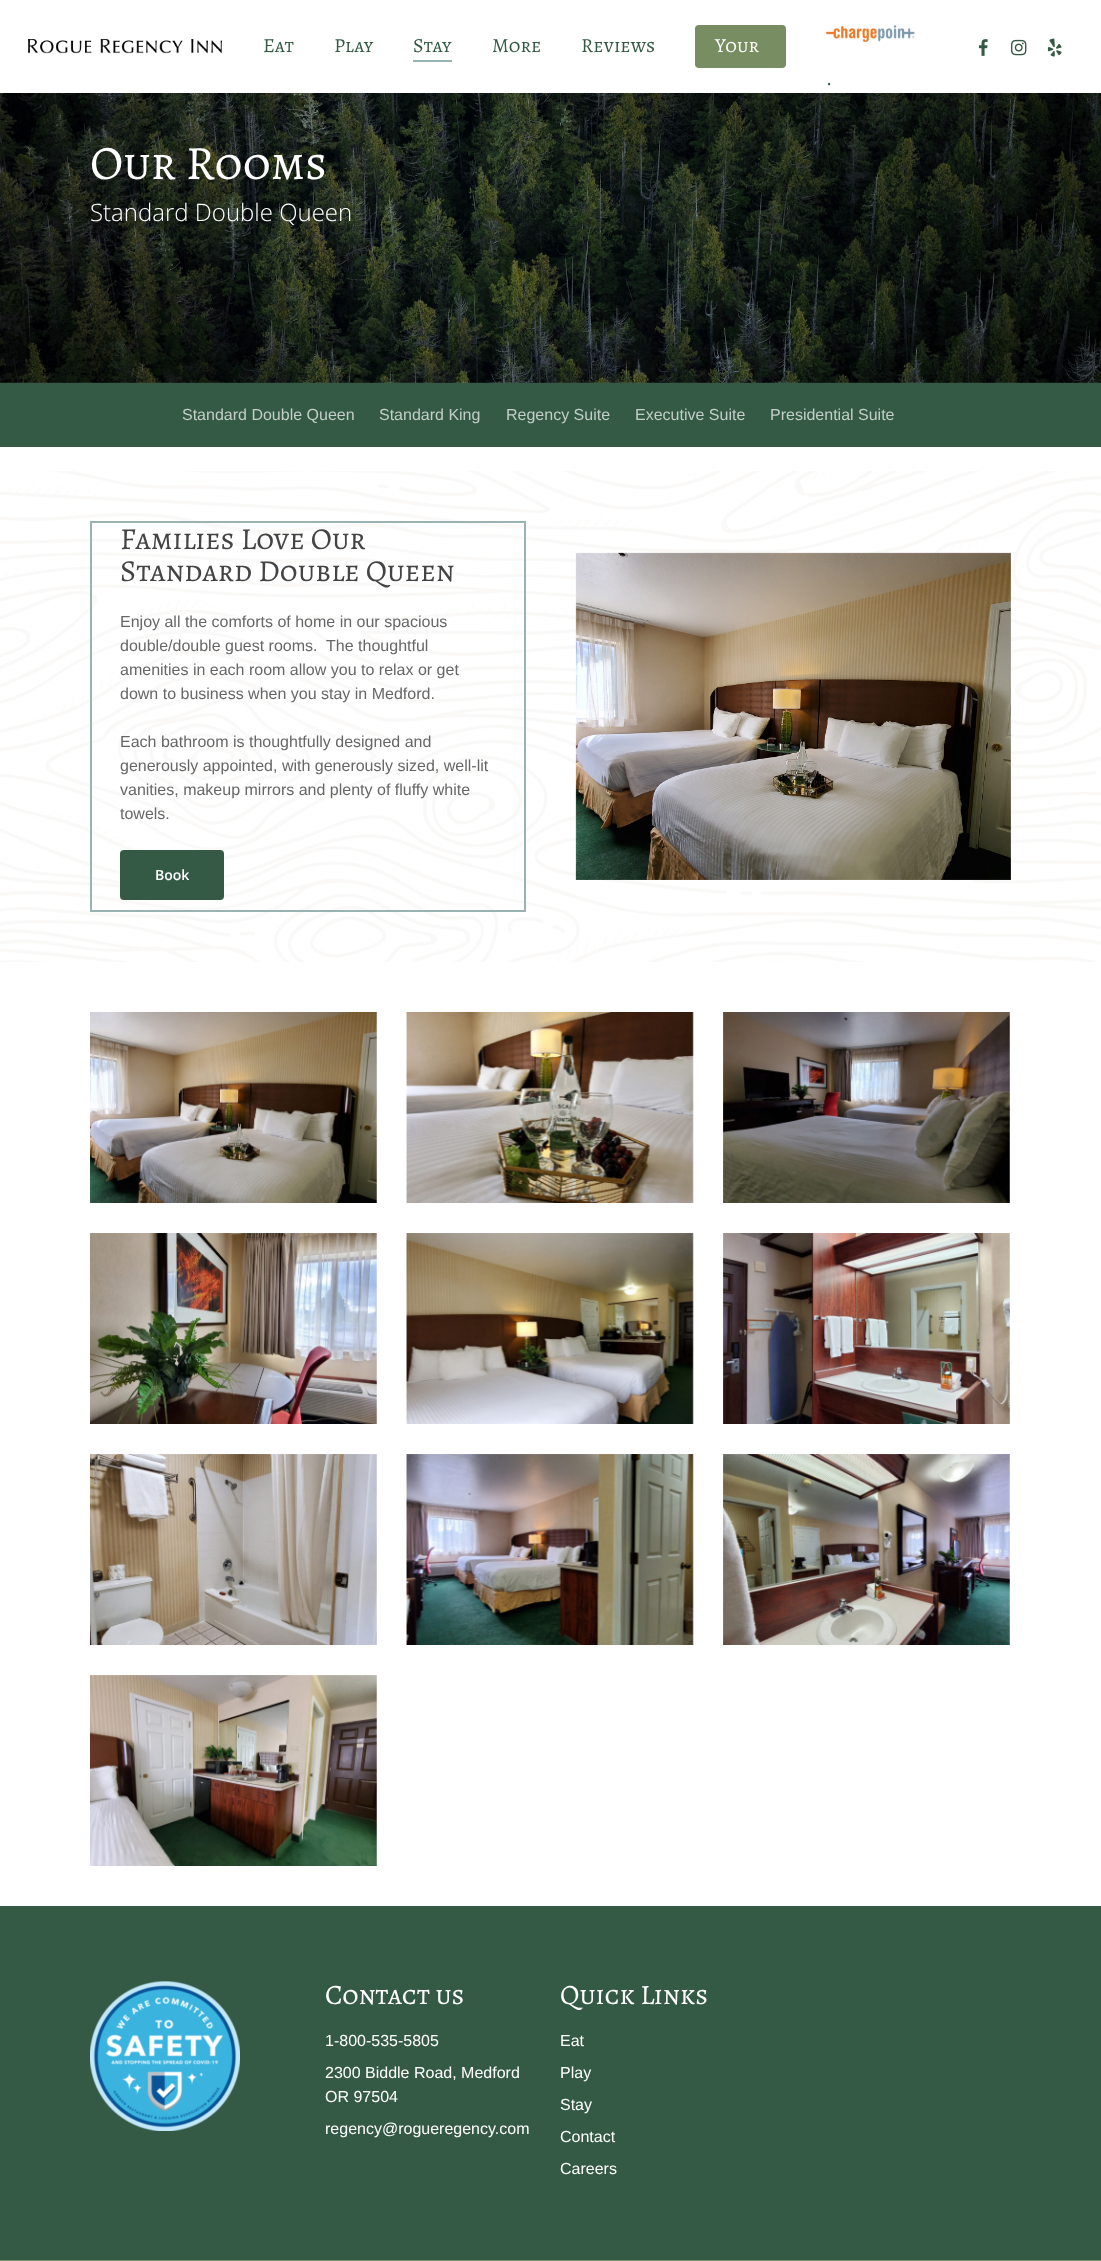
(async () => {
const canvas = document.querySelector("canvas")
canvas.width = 1101
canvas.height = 2261
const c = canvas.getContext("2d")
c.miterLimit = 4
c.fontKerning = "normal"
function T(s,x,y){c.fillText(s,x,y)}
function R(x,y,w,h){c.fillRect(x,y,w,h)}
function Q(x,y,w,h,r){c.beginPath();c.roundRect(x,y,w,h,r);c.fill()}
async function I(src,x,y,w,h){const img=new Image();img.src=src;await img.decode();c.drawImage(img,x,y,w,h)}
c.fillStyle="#fff"
R(0,0,1101,2261)
await I("6.png",0,93,1101,290)
c.fillStyle="#00000026"
c.filter="blur(22.5px)"
c.beginPath()
c.rect(0,3,1101,93)
c.fill()
c.filter="none"
c.fillStyle="#fff"
R(0,0,1101,93)
await I("1.png",28,39,194,15)
c.font="20px Alegreya SC"
c.fillStyle="#345a45"
T("Eat",263,52)
T("Play",334,52)
T("Stay",413,52)
c.fillStyle="#99b3b2"
R(413,60,39,2)
c.fillStyle="#345a45"
T("More",492,52)
T("Reviews",581,52)
c.fillStyle="#788d62"
Q(695,25,91,43,4)
c.fillStyle="#fff"
T("Your",715,52)
await I("2.png",978,39,10,17)
await I("3.png",1011,39,16,17)
await I("4.png",1047,38,15,19)
await I("5.png",825,25,90,17)
c.fillStyle="#345a45"
T(".",826,85)
c.font="48px Alegreya SC"
c.fillStyle="#fff"
T("Our Rooms",90,179)
c.font="300 24px Open Sans"
T("Standard Double Queen",90,221)
c.fillStyle="#345a45"
R(0,383,1101,64)
c.font="16px Liberation Sans"
c.fillStyle="#c2cec7"
T("Standard Double Queen",182,420)
T("Standard King",379,420)
T("Regency Suite",506,420)
T("Executive Suite",635,420)
T("Presidential Suite",770,420)
await I("7.png",0,471,1101,491)
c.fillStyle="#99b3b2"
R(90,521,436,2)
R(524,521,2,391)
R(90,910,436,2)
R(90,521,2,391)
c.font="30.6px Alegreya SC"
c.fillStyle="#444"
T("Families Love Our",120,549)
T("Standard Double Queen",120,581)
c.font="16px Liberation Sans"
c.fillStyle="#676767"
T("Enjoy all the comforts of home in our spacious",120,627)
T("double/double guest rooms.  The thoughtful",120,651)
T("amenities in each room allow you to relax or get",120,675)
T("down to business when you stay in Medford.",120,699)
T("Each bathroom is thoughtfully designed and",120,747)
T("generously appointed, with generously sized, well-lit",120,771)
T("vanities, makeup mirrors and plenty of fluffy white",120,795)
T("towels.",120,819)
c.fillStyle="#345a45"
Q(120,850,104,50,4)
c.font="600 14px Open Sans"
c.fillStyle="#fff"
T("Book",155,880)
await I("8.png",575,552,436,328)
await I("9.png",90,1012,287,191)
await I("10.png",406,1012,288,191)
await I("11.png",723,1012,287,191)
await I("12.png",90,1233,287,191)
await I("13.png",406,1233,288,191)
await I("14.png",723,1233,287,191)
await I("15.png",90,1454,287,191)
await I("16.png",406,1454,288,191)
await I("17.png",723,1454,287,191)
await I("18.png",90,1675,287,191)
c.fillStyle="#345a45"
R(0,1906,1101,354)
await I("19.png",90,1981,150,150)
c.font="28px Alegreya SC"
c.fillStyle="#fff"
T("Contact us",325,2004)
c.font="16px Liberation Sans"
T("1-800-535-5805",325,2046)
T("2300 Biddle Road, Medford",325,2078)
T("OR 97504",325,2102)
T("regency@rogueregency.com",325,2134)
c.font="28px Alegreya SC"
T("Quick Links",560,2004)
c.font="16px Liberation Sans"
T("Eat",560,2046)
T("Play",560,2078)
T("Stay",560,2110)
T("Contact",560,2142)
T("Careers",560,2174)
c.fillStyle="#788d62"
R(0,2260,1101,1)
})()
